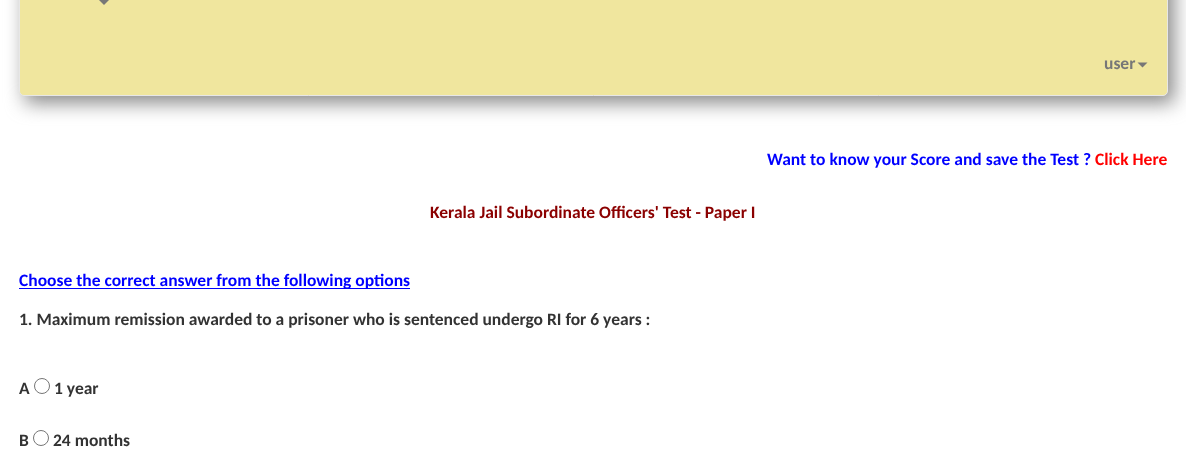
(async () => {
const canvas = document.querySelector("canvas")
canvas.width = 1186
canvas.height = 450
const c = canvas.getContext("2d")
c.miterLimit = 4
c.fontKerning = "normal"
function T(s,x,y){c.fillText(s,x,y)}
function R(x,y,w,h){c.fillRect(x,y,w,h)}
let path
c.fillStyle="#fff"
R(0,0,1186,450)
c.fillStyle="#888"
c.filter="blur(9.5px)"
c.beginPath()
c.rect(25,-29,1149,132)
c.fill()
c.filter="none"
c.fillStyle="#f0e69e"
c.beginPath()
c.roundRect(19.5,-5.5,1148,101,4.5)
c.fill()
c.strokeStyle="#e7e7e7"
c.stroke()
c.fillStyle="#777"
path = new Path2D("M99 0h10l-5 5z")
c.fill(path)
c.font="bold 17.5px Carlito"
T("user",1104,69)
path = new Path2D("M1137.5 62.5h10l-5 5z")
c.fill(path)
c.fillStyle="#00f"
T("Want to know your Score and save the Test ?",767,165)
c.fillStyle="#f00"
T("Click Here",1095,165)
c.fillStyle="#8b0000"
T("Kerala Jail Subordinate Officers' Test - Paper I",430,218)
c.fillStyle="#00f"
R(19,288,391,1)
T("Choose the correct answer from the following options",19,286)
c.fillStyle="#333"
T("1. Maximum remission awarded to a prisoner who is sentenced undergo RI for 6 years :",19,325)
T("A",19,394)
c.beginPath()
c.arc(42,386,7.5,0,7)
c.strokeStyle="#767676"
c.stroke()
T("1 year",54,394)
T("B",19,446)
c.beginPath()
c.arc(41,438,7.5,0,7)
c.stroke()
T("24 months",53,446)
})()
